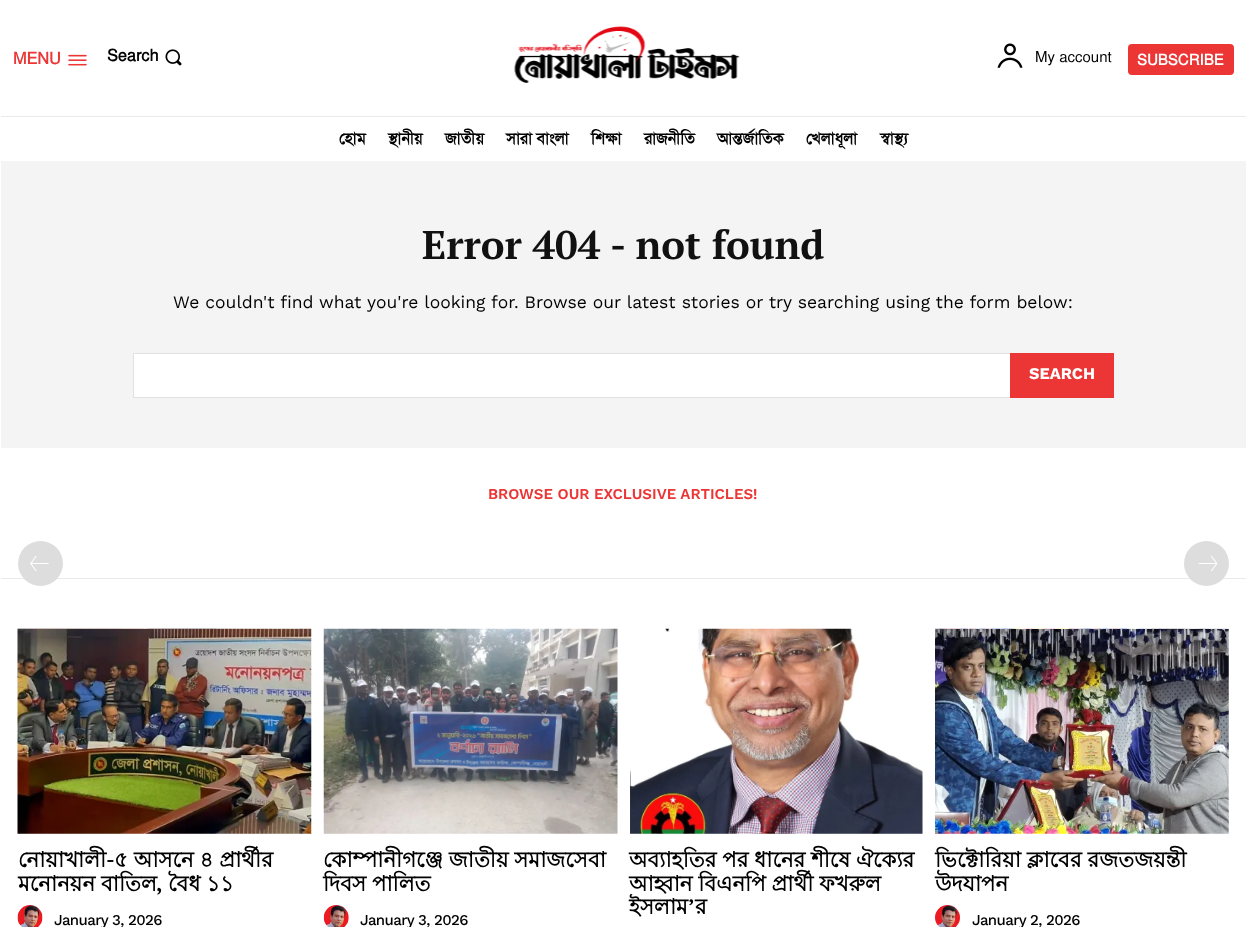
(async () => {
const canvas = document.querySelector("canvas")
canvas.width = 1246
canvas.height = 927
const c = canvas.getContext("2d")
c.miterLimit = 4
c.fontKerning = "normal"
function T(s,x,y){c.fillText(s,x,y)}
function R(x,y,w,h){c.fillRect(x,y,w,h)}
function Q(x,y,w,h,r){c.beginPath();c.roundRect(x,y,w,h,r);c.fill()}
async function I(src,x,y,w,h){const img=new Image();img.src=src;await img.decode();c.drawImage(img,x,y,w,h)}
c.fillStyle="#fff"
R(0,0,1246,927)
c.font="bold 16.25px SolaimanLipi"
c.fillStyle="#ec3535"
T("MENU",13,64)
await I("1.png",68,54,19,12)
c.fillStyle="#000"
T("Search",107,61)
await I("2.png",165,49,17,17)
await I("3.png",514,26,226,57)
await I("4.png",997,43,26,25)
c.font="15px SolaimanLipi"
T("My account",1035,62)
c.fillStyle="#ec3535"
Q(1128,44,106,31,4)
c.font="bold 15px SolaimanLipi"
c.fillStyle="#fff"
T("SUBSCRIBE",1137,65)
c.fillStyle="#eaeaea"
R(1,116,1245,1)
c.font="bold 16.25px SolaimanLipi"
c.fillStyle="#000"
T("হোম",339,144)
T("স্থানীয়",388,144)
T("জাতীয়",445,144)
T("সারা বাংলা",506,144)
T("শিক্ষা",591,144)
T("রাজনীতি",644,144)
T("আন্তর্জাতিক",717,144)
T("খেলাধূলা",806,144)
T("স্বাস্থ্য",880,144)
c.fillStyle="#f4f4f4"
R(1,161,1245,287)
c.font="bold 40px PT Serif"
c.fillStyle="#111"
T("Error 404 - not found",422,259)
c.font="17.5px Work Sans"
c.fillStyle="#000"
T("We couldn't find what you're looking for. Browse our latest stories or try searching using the form below:",173,308)
c.fillStyle="#fff"
R(134,354,876,43)
c.strokeStyle="#e1e1e1"
c.strokeRect(133.5,353.5,980,44)
c.fillStyle="#ec3535"
R(1010,353,104,45)
c.font="bold 16.25px Work Sans"
c.fillStyle="#fff"
T("SEARCH",1029,379)
c.font="600 15px Work Sans"
c.fillStyle="#ec3535"
T("BROWSE OUR EXCLUSIVE ARTICLES!",488,499)
c.fillStyle="#eaeaea"
R(1,578,1245,1)
c.fillStyle="#ddd"
c.beginPath()
c.arc(40.5,563.5,22.5,0,7)
c.fill()
await I("5.png",30,556,19,15)
c.beginPath()
c.arc(1206.5,563.5,22.5,0,7)
c.fill()
await I("6.png",1198,555,20,17)
await I("7.png",17,628,295,206)
c.font="bold 21.25px Lohit Bengali"
c.fillStyle="#000"
T("নোয়াখালী",18,867)
c.font="bold 21.25px PT Serif"
T("-",106,867)
c.font="bold 21.25px Lohit Bengali"
T("৫ আসনে ৪ প্রার্থীর",114,867)
T("মনোনয়ন বাতিল",18,891)
c.font="bold 21.25px PT Serif"
T(",",156,891)
c.font="bold 21.25px Lohit Bengali"
T("বৈধ ১১",168,891)
await I("8.png",17,905,26,22)
c.letterSpacing="-0.6px"
c.font="500 15px Work Sans"
T("January 3, 2026",54,925)
await I("9.png",323,628,295,206)
c.letterSpacing="0px"
c.font="bold 21.25px Lohit Bengali"
T("কোম্পানীগঞ্জে জাতীয় সমাজসেবা",323,867)
T("দিবস পালিত",323,891)
await I("10.png",323,905,26,22)
c.letterSpacing="-0.6px"
c.font="500 15px Work Sans"
T("January 3, 2026",360,925)
await I("11.png",630,628,293,206)
c.letterSpacing="0px"
c.font="bold 21.25px Lohit Bengali"
T("অব্যাহতির পর ধানের শীষে ঐক্যের",629,867)
T("আহ্বান বিএনপি প্রার্থী ফখরুল",629,891)
T("ইসলাম",629,914)
c.font="bold 21.25px PT Serif"
T("’",688,914)
c.font="bold 21.25px Lohit Bengali"
T("র",695,914)
await I("12.png",935,628,294,206)
T("ভিক্টোরিয়া ক্লাবের রজতজয়ন্তী",935,867)
T("উদযাপন",935,891)
await I("13.png",935,905,25,22)
c.letterSpacing="-0.6px"
c.font="500 15px Work Sans"
T("January 2, 2026",972,925)
})()
